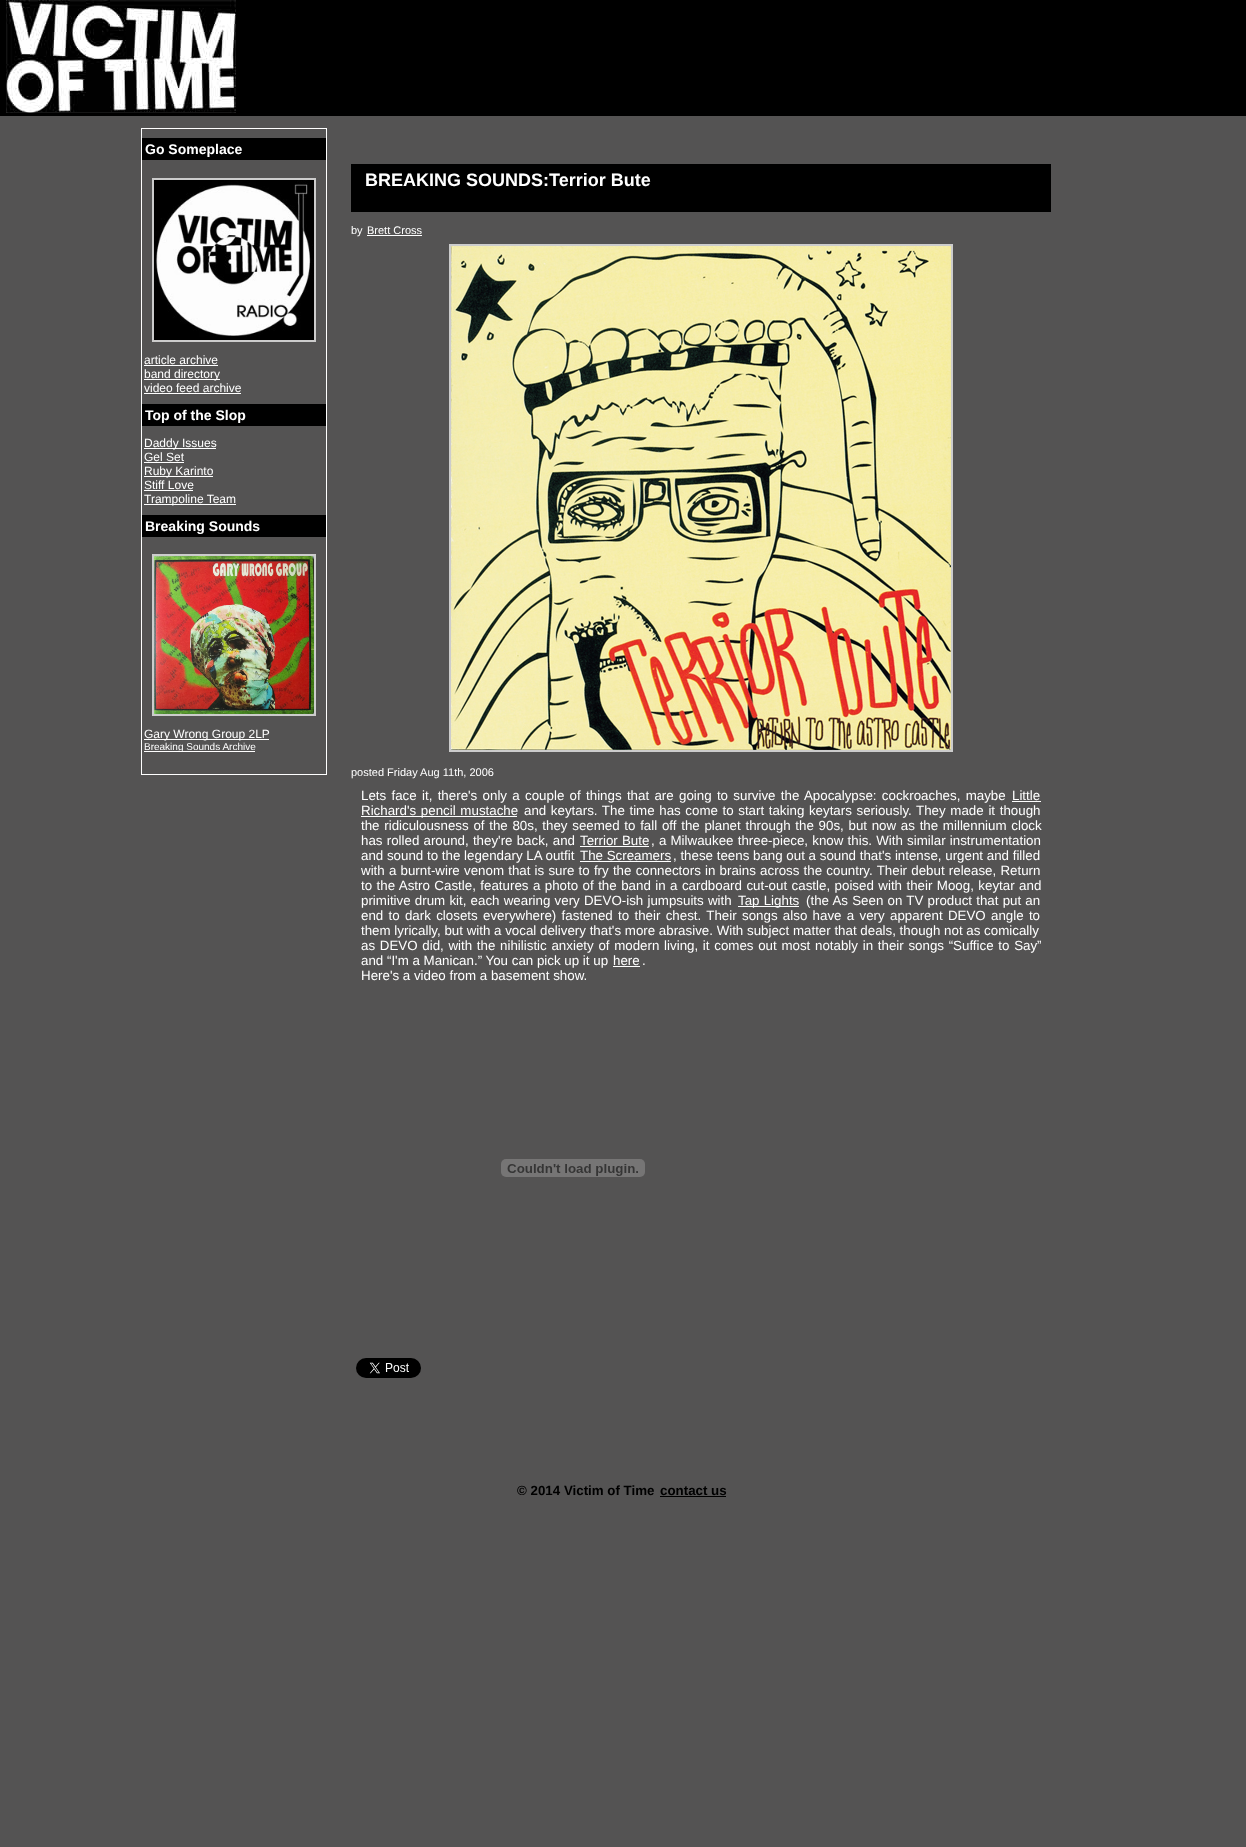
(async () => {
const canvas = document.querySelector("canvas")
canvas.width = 1246
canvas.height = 1847
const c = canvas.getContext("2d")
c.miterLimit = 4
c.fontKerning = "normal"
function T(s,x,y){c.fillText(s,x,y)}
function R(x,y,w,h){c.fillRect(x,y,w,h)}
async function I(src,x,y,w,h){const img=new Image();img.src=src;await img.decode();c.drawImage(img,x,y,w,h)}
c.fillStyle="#545353"
R(0,0,1246,1847)
c.fillStyle="#000"
R(0,0,1246,116)
await I("1.png",6,0,230,113)
c.strokeStyle="#fff"
c.strokeRect(141.5,128.5,185,646)
R(142,138,184,22)
c.font="bold 14px Liberation Sans"
c.fillStyle="#fff"
T("Go Someplace",145,154)
c.strokeStyle="#ccc"
c.lineWidth=2
c.strokeRect(153,179,162,162)
await I("2.png",154,180,160,160)
c.font="12px Liberation Sans"
T("article archive",144,364)
R(144,365,74,1)
R(144,379,76,1)
T("band directory",144,378)
T("video feed archive",144,392)
R(144,393,97,1)
c.fillStyle="#000"
R(142,404,184,22)
c.font="bold 14px Liberation Sans"
c.fillStyle="#fff"
T("Top of the Slop",145,420)
R(144,448,72,1)
c.font="12px Liberation Sans"
T("Daddy Issues",144,447)
T("Gel Set",144,461)
R(144,462,40,1)
R(144,476,69,1)
T("Ruby Karinto",144,475)
T("Stiff Love",144,489)
R(144,490,49,1)
R(144,504,92,1)
T("Trampoline Team",144,503)
c.fillStyle="#000"
R(142,515,184,22)
c.font="bold 14px Liberation Sans"
c.fillStyle="#fff"
T("Breaking Sounds",145,531)
c.strokeRect(153,555,162,160)
await I("3.png",154,556,160,158)
R(144,739,125,1)
c.font="12px Liberation Sans"
T("Gary Wrong Group 2LP",144,738)
R(144,751,111,1)
c.font="10px Liberation Sans"
T("Breaking Sounds Archive",144,750)
c.fillStyle="#000"
R(351,164,700,48)
c.font="bold 18px Liberation Sans"
c.fillStyle="#fff"
T("BREAKING SOUNDS:Terrior Bute",365,186)
c.font="11px Liberation Sans"
T("by",351,234)
T("Brett Cross",367,234)
R(367,235,55,1)
c.strokeRect(450,245,502,506)
await I("4.png",451,246,500,504)
T("posted Friday Aug 11th, 2006",351,776)
c.wordSpacing="1.6px"
c.font="13.33px Liberation Sans"
T("Lets face it, there's only a couple of things that are going to survive the Apocalypse: cockroaches, maybe",361,800)
c.wordSpacing="0px"
T("Little",1012,800)
R(1012,801,29,1)
R(361,816,156,1)
c.wordSpacing="1px"
T("Richard's pencil mustache",361,815)
c.wordSpacing="0.9px"
T("and keytars. The time has come to start taking keytars seriously.",524,815)
c.wordSpacing="1px"
T("They made it though",916,815)
T("the ridiculousness of the 80s, they seemed to fall off the planet through the 90s, but now as the millennium clock",361,830)
c.wordSpacing="0.5px"
T("has rolled around, they're back, and",361,845)
T("Terrior Bute",580,845)
R(580,846,69,1)
T(", a Milwaukee three-piece, know this. With similar instrumentation",651,845)
c.wordSpacing="0px"
T("and sound to the legendary LA outfit",361,860)
T("The Screamers",580,860)
R(580,861,91,1)
T(", these teens bang out a sound that's intense, urgent and filled",673,860)
c.wordSpacing="0.5px"
T("with a burnt-wire venom that is sure to fry the connectors in brains across the country. Their debut release, Return",361,875)
c.wordSpacing="0.75px"
T("to the Astro Castle, features a photo of the band in a cardboard cut-out castle, poised with their Moog, keytar and",361,890)
c.wordSpacing="0.5px"
T("primitive drum kit, each wearing very DEVO-ish jumpsuits with",361,905)
R(738,906,61,1)
T("Tap Lights",738,905)
T("(the As Seen on TV product that put an",806,905)
c.wordSpacing="1.6px"
T("end to dark closets everywhere) fastened to their chest. Their songs also have a very apparent DEVO angle to",361,920)
c.wordSpacing="0px"
T("them lyrically, but with a vocal delivery that's more abrasive. With subject matter that deals, though not as comically",361,935)
c.wordSpacing="1px"
T("as DEVO did, with the nihilistic anxiety of modern living, it comes out most notably in their songs “Suffice to Say”",361,950)
c.wordSpacing="0px"
T("and “I'm a Manican.” You can pick up it up",361,965)
T("here",613,965)
R(613,966,27,1)
T(".",642,965)
T("Here's a video from a basement show.",361,980)
await I("5.png",501,1159,144,18)
await I("6.png",356,1358,65,20)
c.font="bold 13.33px Liberation Sans"
c.fillStyle="#000"
T("© 2014 Victim of Time",517,1495)
T("contact us",660,1495)
R(660,1496,66,1)
})()
